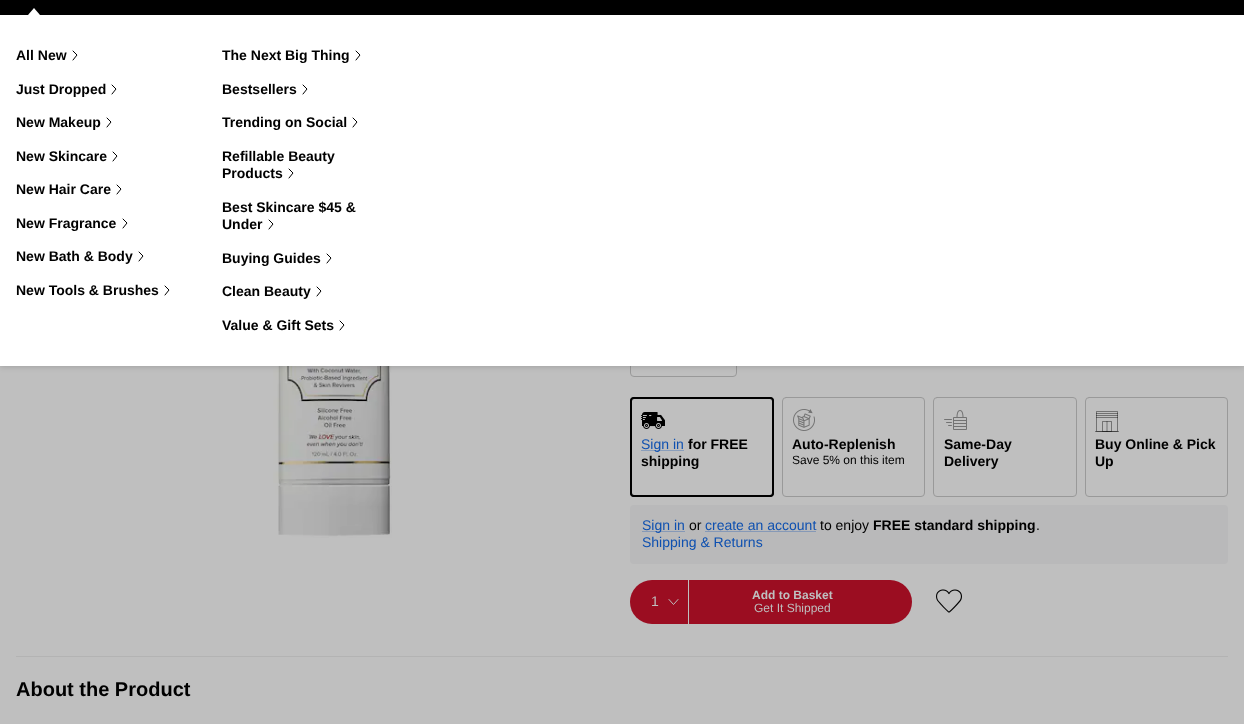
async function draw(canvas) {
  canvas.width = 1244;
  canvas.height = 724;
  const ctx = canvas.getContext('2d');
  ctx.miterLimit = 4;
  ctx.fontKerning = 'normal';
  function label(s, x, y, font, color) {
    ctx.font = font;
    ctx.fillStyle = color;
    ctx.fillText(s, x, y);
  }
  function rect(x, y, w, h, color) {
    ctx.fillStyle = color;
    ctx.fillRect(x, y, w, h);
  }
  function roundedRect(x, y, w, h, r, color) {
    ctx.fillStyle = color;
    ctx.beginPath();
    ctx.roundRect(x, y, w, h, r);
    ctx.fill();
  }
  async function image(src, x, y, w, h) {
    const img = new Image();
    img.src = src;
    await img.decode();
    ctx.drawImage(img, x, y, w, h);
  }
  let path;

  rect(0, 0, 1244, 724, '#bfbfbf');
  rect(0, 0, 1244, 15, '#000');
  await image('assets/img1.png', 273, 366, 119, 172);
  ctx.beginPath();
  ctx.roundRect(630.5, 341.5, 106, 35, 3.5);
  ctx.strokeStyle = '#999';
  ctx.stroke();
  ctx.fillStyle = '#00000033';
  ctx.filter = 'blur(3px)';
  ctx.beginPath();
  ctx.rect(0, 15, 1244, 351);
  ctx.fill();
  ctx.filter = 'none';
  ctx.fillStyle = '#fff';
  path = new Path2D('M40 15H28L34 8Z');
  ctx.fill(path);
  rect(0, 15, 1244, 351, '#fff');
  label('All New', 16, 60, 'bold 14px Liberation Sans', '#000');
  path = new Path2D('M73 60L77 55L73 51M112 94L116 89L112 85');
  ctx.strokeStyle = '#000';
  ctx.lineCap = 'round';
  ctx.lineJoin = 'round';
  ctx.stroke(path);
  label('Just Dropped', 16, 94, 'bold 14px Liberation Sans', '#000');
  label('New Makeup', 16, 127, 'bold 14px Liberation Sans', '#000');
  path = new Path2D('M107 127L111 122L107 118M113 161L117 156L113 152');
  ctx.stroke(path);
  label('New Skincare', 16, 161, 'bold 14px Liberation Sans', '#000');
  label('New Hair Care', 16, 194, 'bold 14px Liberation Sans', '#000');
  path = new Path2D('M117 194L121 189L117 185M123 228L127 223L123 219');
  ctx.stroke(path);
  label('New Fragrance', 16, 228, 'bold 14px Liberation Sans', '#000');
  label('New Bath & Body', 16, 261, 'bold 14px Liberation Sans', '#000');
  path = new Path2D('M139 261L143 256L139 252M165 295L169 290L165 286');
  ctx.stroke(path);
  label('New Tools & Brushes', 16, 295, 'bold 14px Liberation Sans', '#000');
  label('The Next Big Thing', 222, 60, 'bold 14px Liberation Sans', '#000');
  path = new Path2D('M356 60L360 55L356 51M303 94L307 89L303 85');
  ctx.stroke(path);
  label('Bestsellers', 222, 94, 'bold 14px Liberation Sans', '#000');
  label('Trending on Social', 222, 127, 'bold 14px Liberation Sans', '#000');
  path = new Path2D('M353 127L357 122L353 118');
  ctx.stroke(path);
  label('Refillable Beauty', 222, 161, 'bold 14px Liberation Sans', '#000');
  label('Products', 222, 178, 'bold 14px Liberation Sans', '#000');
  path = new Path2D('M289 178L293 173L289 169M269 229L273 224L269 220');
  ctx.stroke(path);
  label('Best Skincare $45 &', 222, 212, 'bold 14px Liberation Sans', '#000');
  label('Under', 222, 229, 'bold 14px Liberation Sans', '#000');
  label('Buying Guides', 222, 263, 'bold 14px Liberation Sans', '#000');
  path = new Path2D('M327 263L331 258L327 254M317 296L321 291L317 287');
  ctx.stroke(path);
  label('Clean Beauty', 222, 296, 'bold 14px Liberation Sans', '#000');
  label('Value & Gift Sets', 222, 330, 'bold 14px Liberation Sans', '#000');
  path = new Path2D('M340 330L344 325L340 321');
  ctx.stroke(path);
  ctx.beginPath();
  ctx.roundRect(630.5, 397.5, 143, 99, 3.5);
  ctx.lineJoin = 'miter';
  ctx.stroke();
  await image('assets/img2.png', 641, 412, 24, 17);
  rect(641, 450, 43, 1, '#8a9ebb');
  ctx.beginPath();
  ctx.roundRect(631, 398, 142, 98, 3);
  ctx.lineWidth = 2;
  ctx.stroke();
  label('Sign in', 641, 449, '14px Liberation Sans', '#0e50b0');
  label('for FREE', 688, 449, 'bold 14px Liberation Sans', '#000');
  label('shipping', 641, 466, 'bold 14px Liberation Sans', '#000');
  roundedRect(630, 505, 598, 59, 4, '#b9b9ba');
  rect(642, 531, 43, 1, '#8699b7');
  label('Sign in', 642, 530, '14px Liberation Sans', '#0e50b0');
  label('or', 689, 530, '14px Liberation Sans', '#000');
  label('create an account', 705, 530, '14px Liberation Sans', '#0e50b0');
  rect(705, 531, 111, 1, '#8699b7');
  label('to enjoy', 820, 530, '14px Liberation Sans', '#000');
  label('FREE standard shipping', 873, 530, 'bold 14px Liberation Sans', '#000');
  label('.', 1036, 530, '14px Liberation Sans', '#000');
  label('Shipping & Returns', 642, 547, '14px Liberation Sans', '#0e50b0');
  ctx.beginPath();
  ctx.roundRect(782.5, 397.5, 142, 99, 3.5);
  ctx.strokeStyle = '#999';
  ctx.lineWidth = 1;
  ctx.stroke();
  await image('assets/img3.png', 793, 409, 22, 22);
  label('Auto-Replenish', 792, 449, 'bold 14px Liberation Sans', '#000');
  label('Save 5% on this item', 792, 464, '12px Liberation Sans', '#000');
  ctx.beginPath();
  ctx.roundRect(933.5, 397.5, 143, 99, 3.5);
  ctx.stroke();
  await image('assets/img4.png', 944, 410, 23, 20);
  label('Same-Day', 944, 449, 'bold 14px Liberation Sans', '#000');
  label('Delivery', 944, 466, 'bold 14px Liberation Sans', '#000');
  ctx.beginPath();
  ctx.roundRect(1085.5, 397.5, 142, 99, 3.5);
  ctx.stroke();
  await image('assets/img5.png', 1095, 411, 24, 21);
  label('Buy Online & Pick', 1095, 449, 'bold 14px Liberation Sans', '#000');
  label('Up', 1095, 466, 'bold 14px Liberation Sans', '#000');
  roundedRect(630, 580, 282, 44, 22, '#9b0d21');
  rect(688, 580, 1, 44, '#bfbfbf');
  label('1', 651, 606, '14px Liberation Sans', '#bfbfbf');
  path = new Path2D('M669 599.5L673.5 604.5L678 599.5');
  ctx.strokeStyle = '#bfbfbf';
  ctx.lineJoin = 'round';
  ctx.stroke(path);
  label('Add to Basket', 752, 599, 'bold 12px Liberation Sans', '#bfbfbf');
  label('Get It Shipped', 754, 612, '12px Liberation Sans', '#bfbfbf');
  await image('assets/img6.png', 936, 589, 26, 24);
  rect(16, 656, 1212, 1, '#b3b3b3');
  label('About the Product', 16, 696, 'bold 20px Liberation Sans', '#000');
}

draw(document.querySelector('canvas'));
